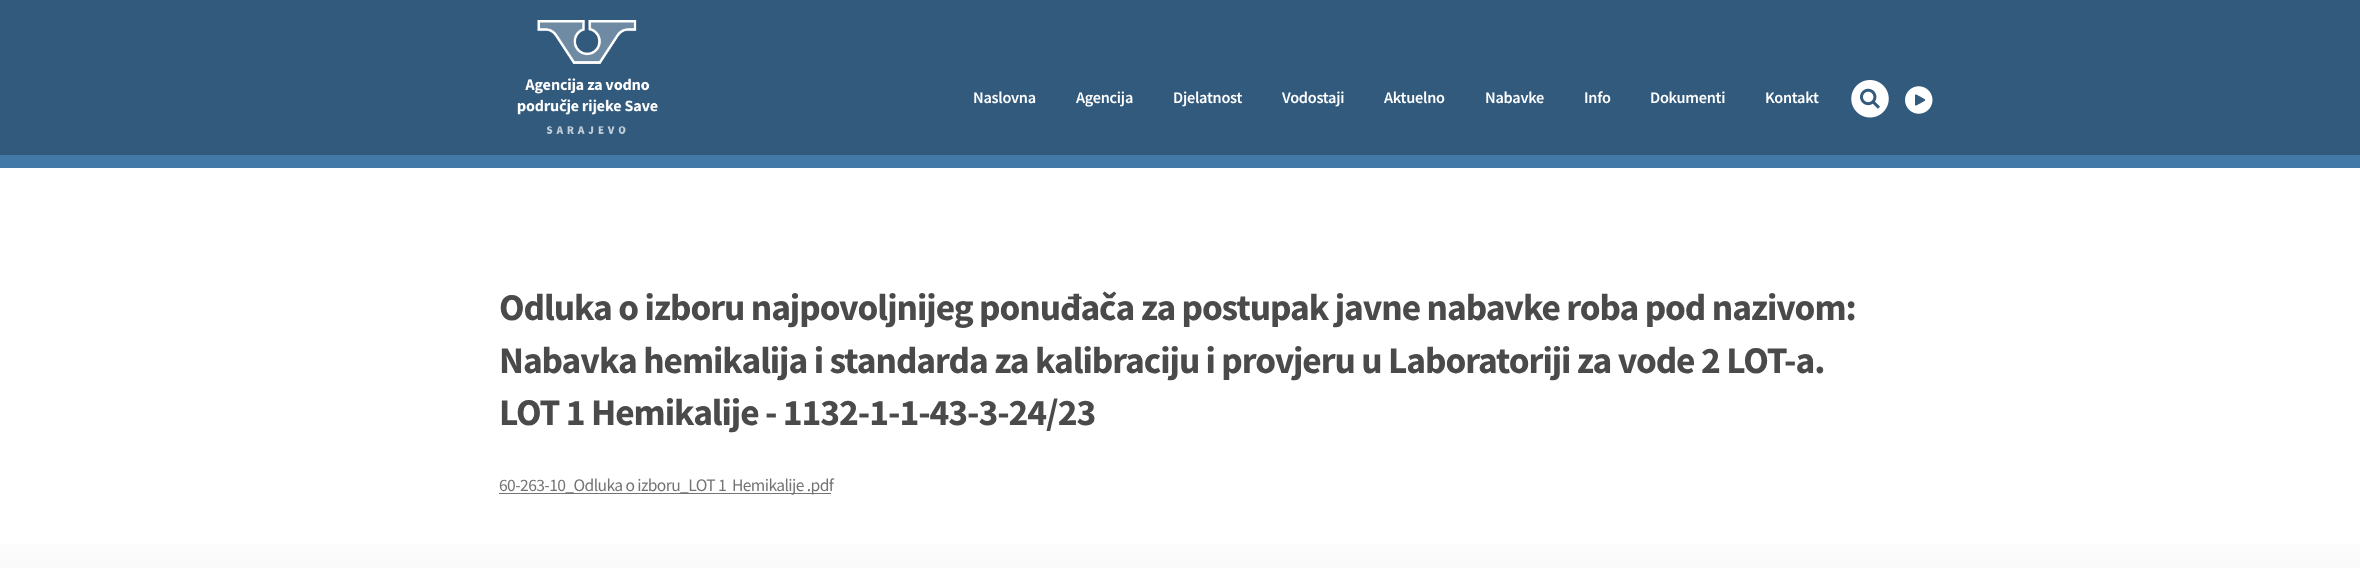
async function draw(canvas) {
  canvas.width = 2360;
  canvas.height = 568;
  const ctx = canvas.getContext('2d');
  ctx.miterLimit = 4;
  ctx.fontKerning = 'normal';
  function label(s, x, y, font, color) {
    ctx.font = font;
    ctx.fillStyle = color;
    ctx.fillText(s, x, y);
  }
  function rect(x, y, w, h, color) {
    ctx.fillStyle = color;
    ctx.fillRect(x, y, w, h);
  }
  async function image(src, x, y, w, h) {
    const img = new Image();
    img.src = src;
    await img.decode();
    ctx.drawImage(img, x, y, w, h);
  }
  let gradient;

  rect(0, 0, 2360, 568, '#fff');
  rect(0, 0, 2360, 155, '#325a7d');
  rect(0, 155, 2360, 13, '#4379a7');
  await image('assets/img1.png', 517, 20, 141, 115);
  ctx.letterSpacing = '-0.25px';
  label('Naslovna', 973, 103, '600 16.25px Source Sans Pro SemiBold', '#fff');
  label('Agencija', 1076, 103, '600 16.25px Source Sans Pro SemiBold', '#fff');
  label('Djelatnost', 1173, 103, '600 16.25px Source Sans Pro SemiBold', '#fff');
  label('Vodostaji', 1282, 103, '600 16.25px Source Sans Pro SemiBold', '#fff');
  label('Aktuelno', 1384, 103, '600 16.25px Source Sans Pro SemiBold', '#fff');
  label('Nabavke', 1485, 103, '600 16.25px Source Sans Pro SemiBold', '#fff');
  label('Info', 1584, 103, '600 16.25px Source Sans Pro SemiBold', '#fff');
  label('Dokumenti', 1650, 103, '600 16.25px Source Sans Pro SemiBold', '#fff');
  label('Kontakt', 1765, 103, '600 16.25px Source Sans Pro SemiBold', '#fff');
  await image('assets/img2.png', 1851, 80, 38, 38);
  await image('assets/img3.png', 1905, 86, 28, 28);
  ctx.letterSpacing = '-1.05px';
  label('Odluka o izboru najpovoljnijeg ponuđača za postupak javne nabavke roba pod nazivom:', 499, 320, 'bold 37.5px Source Sans Pro', '#4a4a4a');
  label('Nabavka hemikalija i standarda za kalibraciju i provjeru u Laboratoriji za vode 2 LOT-a.', 499, 373, 'bold 37.5px Source Sans Pro', '#4a4a4a');
  label('LOT 1 Hemikalije - 1132-1-1-43-3-24/23', 499, 425, 'bold 37.5px Source Sans Pro', '#4a4a4a');
  rect(499, 493, 332, 1, '#747474');
  ctx.letterSpacing = '-0.6px';
  label('60-263-10_Odluka o izboru_LOT 1  Hemikalije .pdf', 499, 491, '17.5px Source Sans Pro', '#747474');
  gradient = ctx.createLinearGradient(1180, 520, 1180, 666);
  gradient.addColorStop(0, '#fff');
  gradient.addColorStop(1, '#f0f0f0');
  ctx.fillStyle = gradient;
  ctx.fillRect(0, 544, 2360, 24);
}

draw(document.querySelector('canvas'));
